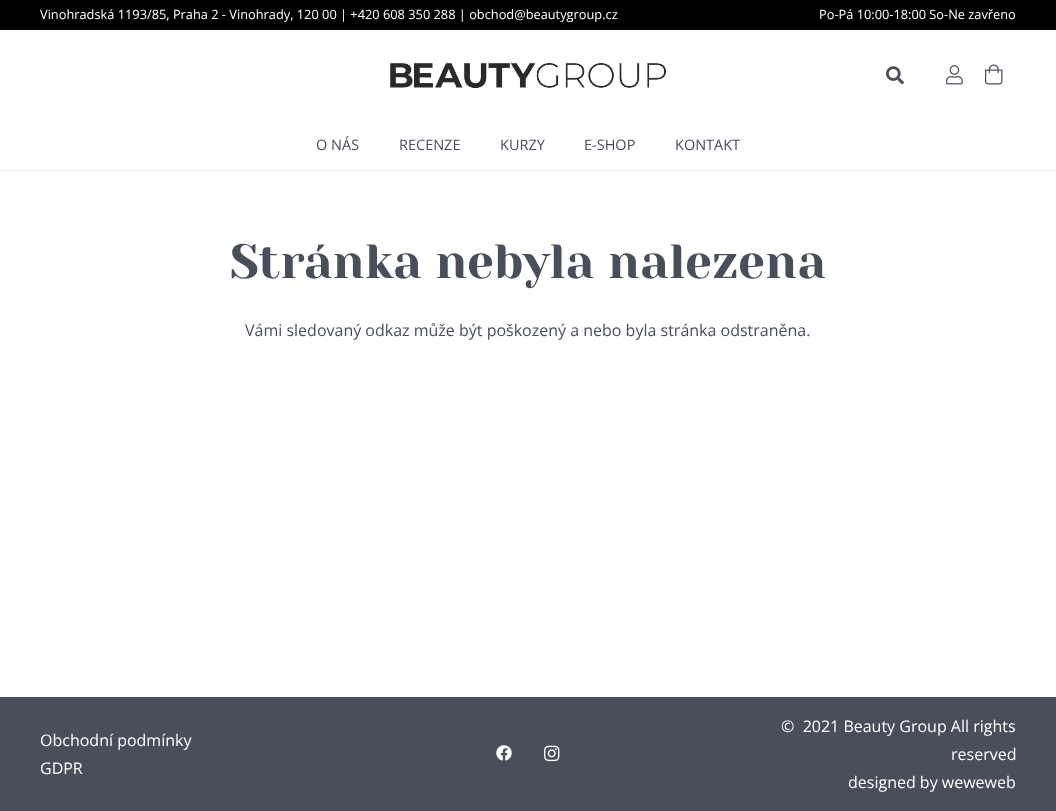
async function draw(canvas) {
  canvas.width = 1056;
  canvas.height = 811;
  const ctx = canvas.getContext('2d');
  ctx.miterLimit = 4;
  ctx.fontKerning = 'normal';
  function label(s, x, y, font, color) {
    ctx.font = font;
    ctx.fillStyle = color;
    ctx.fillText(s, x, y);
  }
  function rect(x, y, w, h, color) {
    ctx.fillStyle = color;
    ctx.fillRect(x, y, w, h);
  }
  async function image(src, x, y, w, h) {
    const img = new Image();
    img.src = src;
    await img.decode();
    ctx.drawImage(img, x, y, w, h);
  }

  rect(0, 0, 1056, 811, '#fff');
  rect(0, 0, 1056, 30, '#000');
  label('Vinohradská 1193/85, Praha 2 - Vinohrady, 120 00 | +420 608 350 288 | obchod@beautygroup.cz', 40, 19, '12.8px Open Sans', '#fff');
  label('Po-Pá 10:00-18:00 So-Ne zavřeno', 819, 19, '12.8px Open Sans', '#fff');
  await image('assets/img1.png', 390, 62, 276, 26);
  await image('assets/img2.png', 886, 66, 18, 19);
  await image('assets/img3.png', 946, 65, 17, 20);
  await image('assets/img4.png', 985, 64, 18, 21);
  rect(0, 170, 1056, 1, '#ebebeb');
  label('O NÁS', 316, 150, '14.5px Open Sans', '#494e5b');
  label('RECENZE', 399, 150, '14.5px Open Sans', '#494e5b');
  label('KURZY', 500, 150, '14.5px Open Sans', '#494e5b');
  label('E-SHOP', 584, 150, '14.5px Open Sans', '#494e5b');
  label('KONTAKT', 675, 150, '14.5px Open Sans', '#494e5b');
  label('Stránka nebyla nalezena', 230, 278, '48px Yeseva One', '#494e5b');
  label('Vámi sledovaný odkaz může být poškozený a nebo byla stránka odstraněna.', 245, 336, '16px Open Sans', '#494e5b');
  rect(0, 697, 1056, 114, '#494e5b');
  label('Obchodní podmínky', 40, 746, '16px Open Sans', '#fff');
  label('GDPR', 40, 774, '16px Open Sans', '#fff');
  await image('assets/img5.png', 496, 745, 16, 16);
  await image('assets/img6.png', 544, 745, 16, 17);
  label('©  2021 Beauty Group All rights', 781, 732, '16px Open Sans', '#fff');
  label('reserved', 951, 760, '16px Open Sans', '#fff');
  label('designed by weweweb', 848, 788, '16px Open Sans', '#fff');
}

draw(document.querySelector('canvas'));
